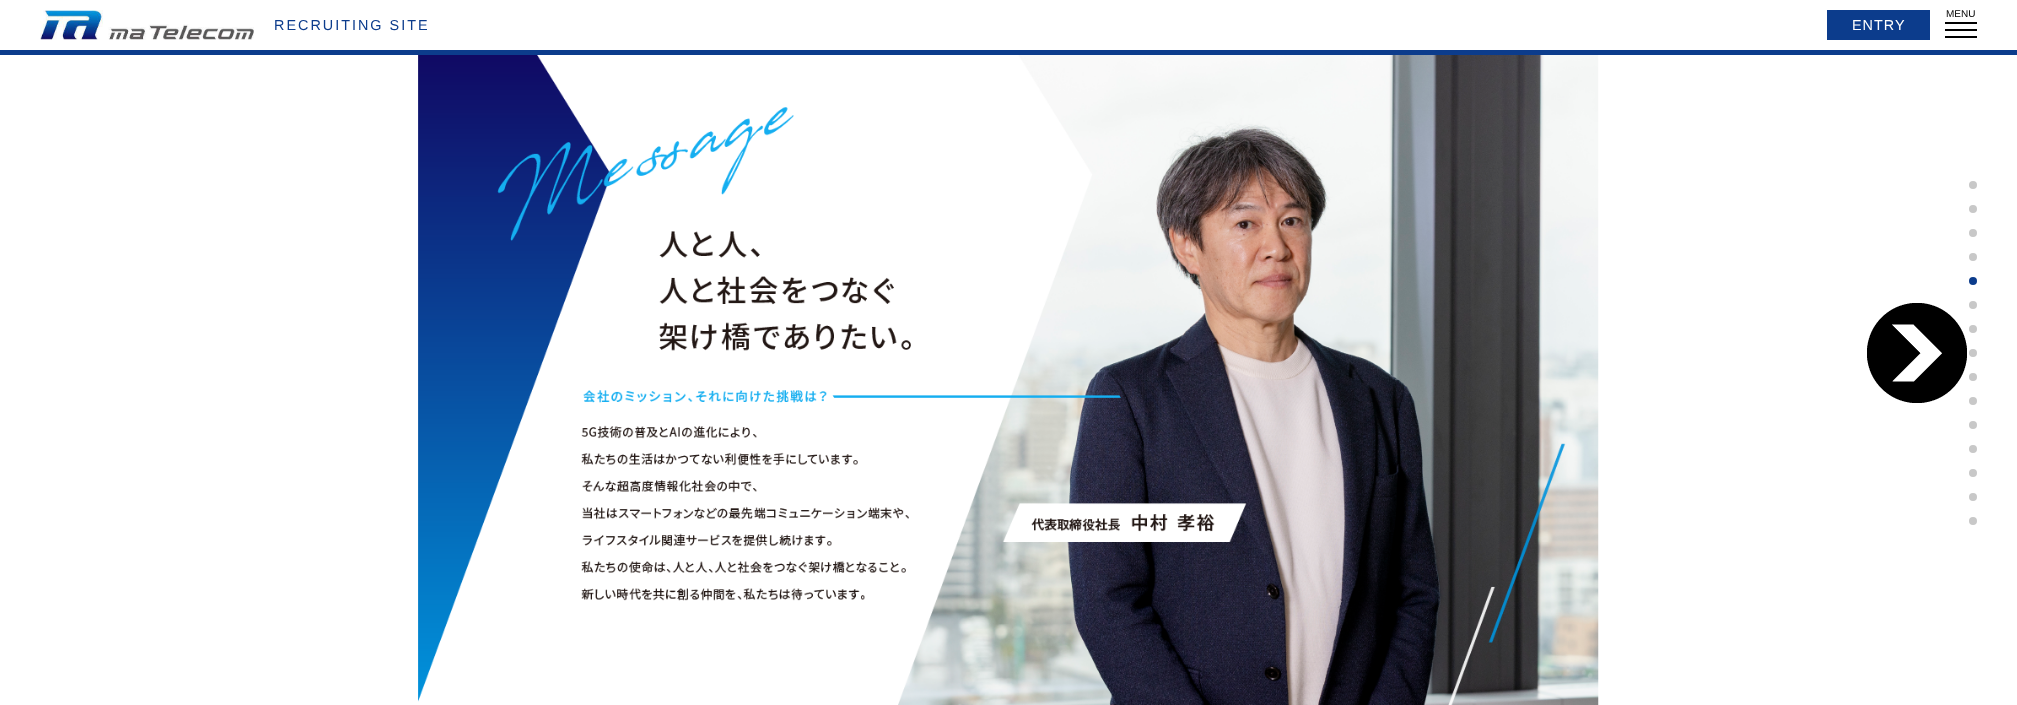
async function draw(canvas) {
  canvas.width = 2017;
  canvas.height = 705;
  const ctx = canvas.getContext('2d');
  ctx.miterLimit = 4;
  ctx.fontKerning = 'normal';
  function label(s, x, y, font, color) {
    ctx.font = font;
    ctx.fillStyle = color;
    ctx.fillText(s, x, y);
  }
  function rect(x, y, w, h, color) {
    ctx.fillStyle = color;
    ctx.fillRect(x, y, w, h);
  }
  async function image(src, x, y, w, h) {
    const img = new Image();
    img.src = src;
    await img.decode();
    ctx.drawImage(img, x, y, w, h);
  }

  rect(0, 0, 2017, 705, '#fff');
  rect(0, 50, 2017, 5, '#0c3c8c');
  await image('assets/img1.png', 40, 10, 214, 30);
  label('MENU', 1946, 17, '10px Liberation Sans', '#000');
  rect(1945, 22, 32, 2, '#000');
  rect(1945, 29, 32, 2, '#000');
  rect(1945, 36, 32, 2, '#000');
  ctx.letterSpacing = '2px';
  label('RECRUITING SITE', 274, 30, '14.4px Liberation Sans', '#0c3c8c');
  rect(1827, 10, 103, 30, '#0c3c8c');
  ctx.letterSpacing = '1px';
  label('ENTRY', 1852, 30, '14.4px Liberation Sans', '#fff');
  await image('assets/img2.png', 418, 55, 1181, 650);
  await image('assets/img3.png', 497, 107, 1069, 598);
  await image('assets/img4.png', 581, 231, 666, 370);
  await image('assets/img5.png', 1867, 303, 100, 100);
  ctx.fillStyle = '#c8c8c8';
  ctx.beginPath();
  ctx.arc(1973, 185, 4, 0, 2 * Math.PI);
  ctx.fill();
  ctx.beginPath();
  ctx.arc(1973, 209, 4, 0, 2 * Math.PI);
  ctx.fill();
  ctx.beginPath();
  ctx.arc(1973, 233, 4, 0, 2 * Math.PI);
  ctx.fill();
  ctx.beginPath();
  ctx.arc(1973, 257, 4, 0, 2 * Math.PI);
  ctx.fill();
  ctx.fillStyle = '#0c3c8c';
  ctx.beginPath();
  ctx.arc(1973, 281, 4, 0, 2 * Math.PI);
  ctx.fill();
  ctx.fillStyle = '#c8c8c8';
  ctx.beginPath();
  ctx.arc(1973, 305, 4, 0, 2 * Math.PI);
  ctx.fill();
  ctx.beginPath();
  ctx.arc(1973, 329, 4, 0, 2 * Math.PI);
  ctx.fill();
  ctx.beginPath();
  ctx.arc(1973, 353, 4, 0, 2 * Math.PI);
  ctx.fill();
  ctx.beginPath();
  ctx.arc(1973, 377, 4, 0, 2 * Math.PI);
  ctx.fill();
  ctx.beginPath();
  ctx.arc(1973, 401, 4, 0, 2 * Math.PI);
  ctx.fill();
  ctx.beginPath();
  ctx.arc(1973, 425, 4, 0, 2 * Math.PI);
  ctx.fill();
  ctx.beginPath();
  ctx.arc(1973, 449, 4, 0, 2 * Math.PI);
  ctx.fill();
  ctx.beginPath();
  ctx.arc(1973, 473, 4, 0, 2 * Math.PI);
  ctx.fill();
  ctx.beginPath();
  ctx.arc(1973, 497, 4, 0, 2 * Math.PI);
  ctx.fill();
  ctx.beginPath();
  ctx.arc(1973, 521, 4, 0, 2 * Math.PI);
  ctx.fill();
}

draw(document.querySelector('canvas'));
